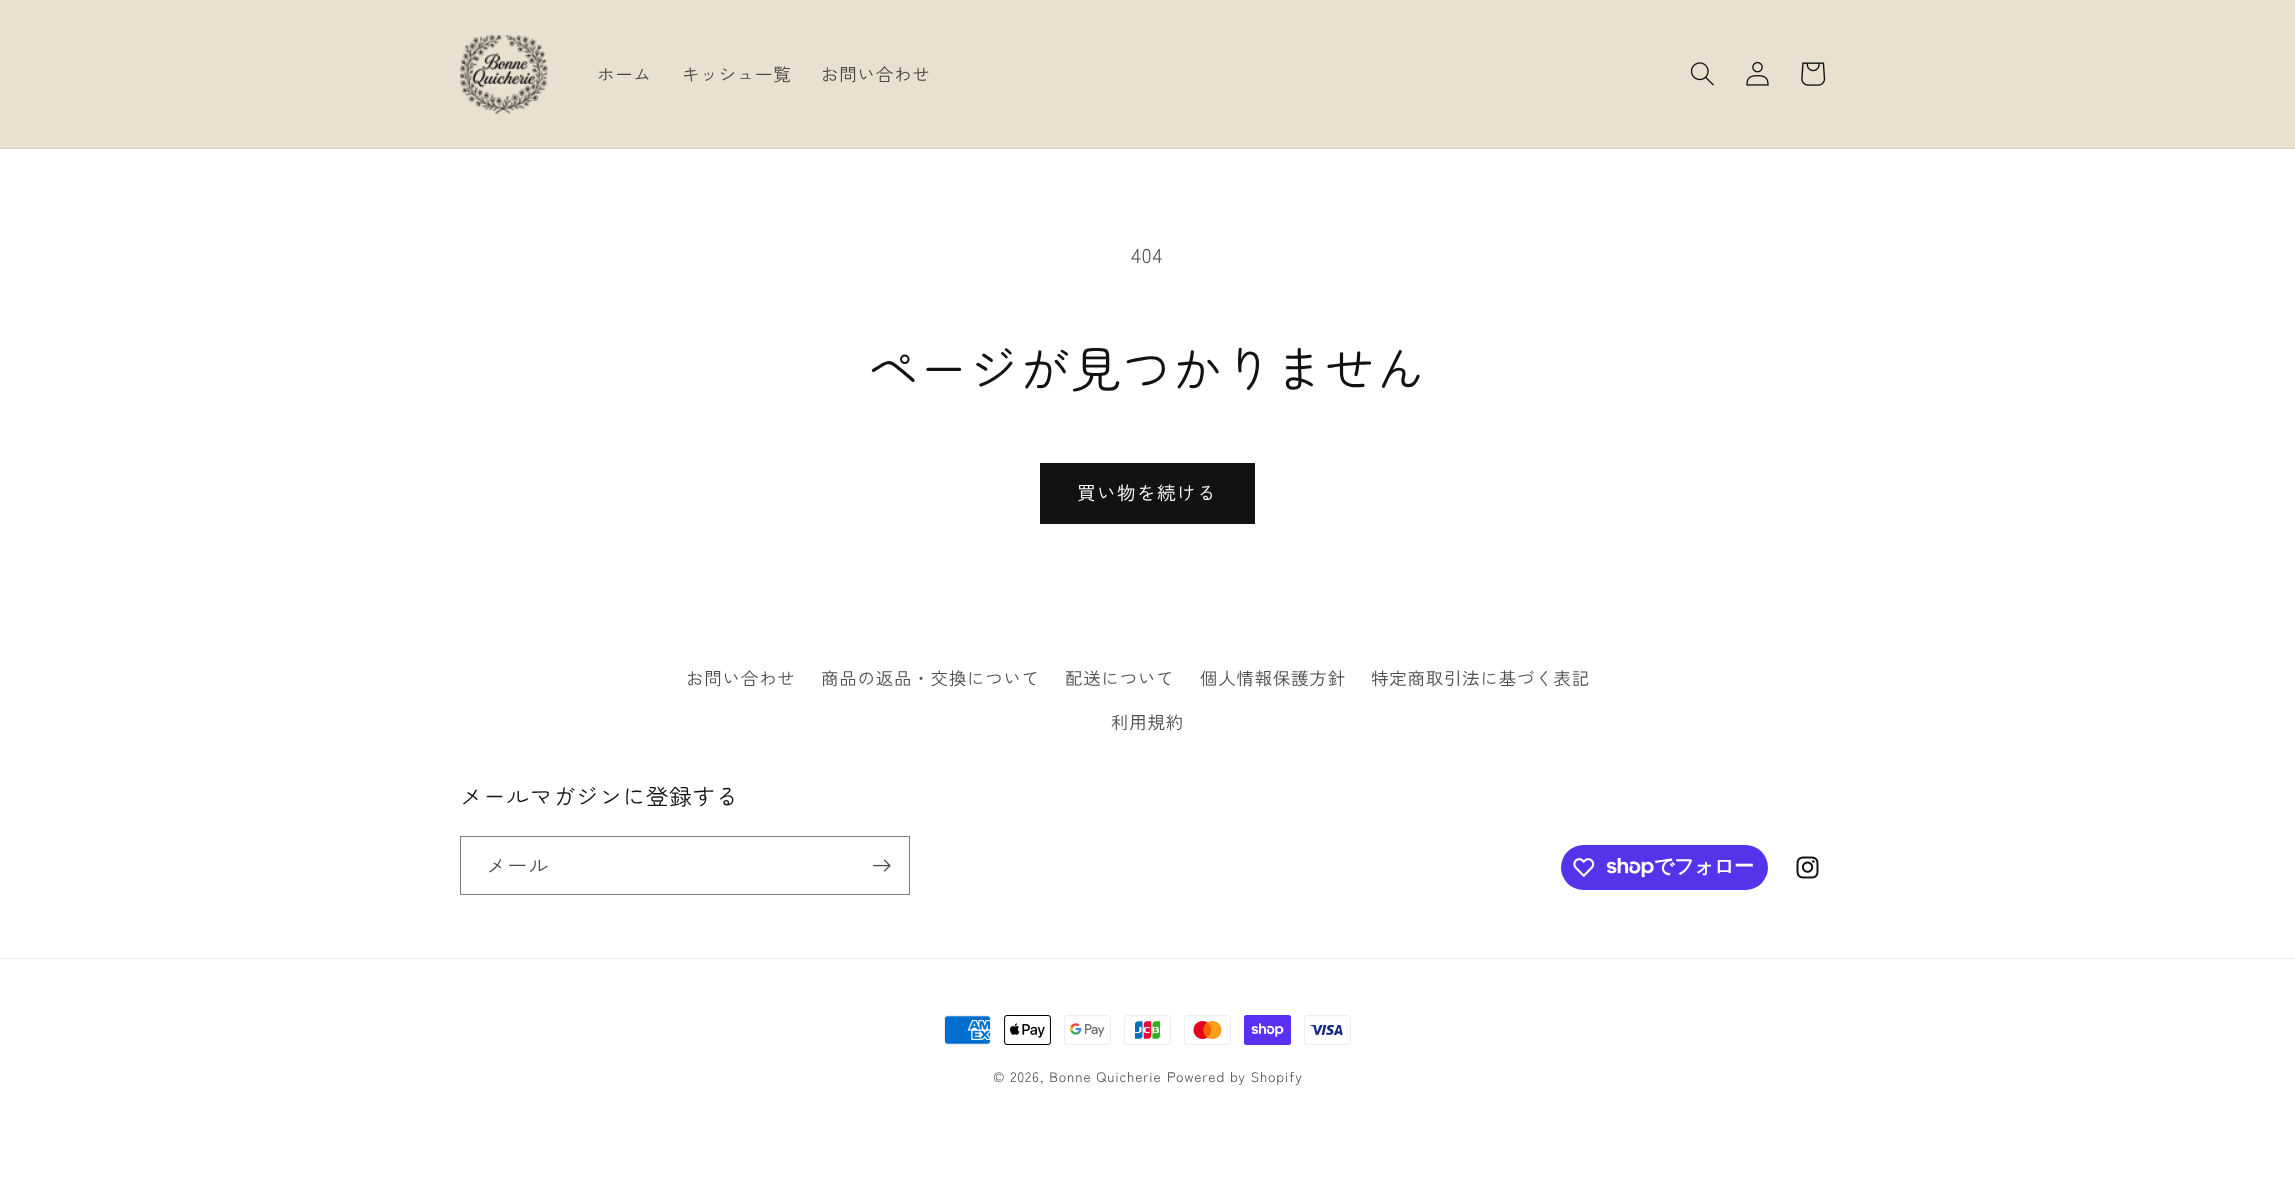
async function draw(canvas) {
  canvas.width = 2295;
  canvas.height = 1191;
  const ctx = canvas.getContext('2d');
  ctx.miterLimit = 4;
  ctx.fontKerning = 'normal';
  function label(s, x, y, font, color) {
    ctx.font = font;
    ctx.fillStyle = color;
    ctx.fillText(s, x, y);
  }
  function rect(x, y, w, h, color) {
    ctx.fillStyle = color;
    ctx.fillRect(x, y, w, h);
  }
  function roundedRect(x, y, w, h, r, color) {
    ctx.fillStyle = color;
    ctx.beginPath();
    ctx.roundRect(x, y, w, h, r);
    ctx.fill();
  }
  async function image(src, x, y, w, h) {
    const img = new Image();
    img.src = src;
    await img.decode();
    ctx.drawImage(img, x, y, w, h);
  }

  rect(0, 0, 2295, 1191, '#fff');
  rect(0, 0, 2295, 148, '#e9e0cf');
  rect(0, 148, 2295, 1, '#d8d0c0');
  await image('assets/img1.png', 460, 35, 88, 79);
  ctx.letterSpacing = '0.75px';
  label('ホーム', 597, 81, '17.5px Zen Kaku Gothic New', '#484641');
  label('キッシュ一覧', 682, 81, '17.5px Zen Kaku Gothic New', '#484641');
  label('お問い合わせ', 821, 81, '17.5px Zen Kaku Gothic New', '#484641');
  await image('assets/img2.png', 1690, 62, 24, 24);
  await image('assets/img3.png', 1746, 61, 23, 25);
  await image('assets/img4.png', 1801, 62, 25, 24);
  label('404', 1131, 263, '20px Zen Kaku Gothic New', '#4d4d4d');
  label('ページが見つかりません', 868, 388, '50px Zen Maru Gothic', '#121212');
  rect(1040, 463, 215, 61, '#121212');
  ctx.letterSpacing = '1.25px';
  label('買い物を続ける', 1077, 500, '18.75px Zen Kaku Gothic New', '#fff');
  ctx.letterSpacing = '0.75px';
  label('お問い合わせ', 686, 685, '17.5px Zen Kaku Gothic New', '#4d4d4d');
  label('商品の返品・交換について', 821, 685, '17.5px Zen Kaku Gothic New', '#4d4d4d');
  label('配送について', 1065, 685, '17.5px Zen Kaku Gothic New', '#4d4d4d');
  label('個人情報保護方針', 1200, 685, '17.5px Zen Kaku Gothic New', '#4d4d4d');
  label('特定商取引法に基づく表記', 1371, 685, '17.5px Zen Kaku Gothic New', '#4d4d4d');
  label('利用規約', 1111, 729, '17.5px Zen Kaku Gothic New', '#4d4d4d');
  label('メールマガジンに登録する', 460, 805, '22.5px Zen Maru Gothic', '#121212');
  ctx.strokeStyle = '#7d7d7d';
  ctx.strokeRect(460.5, 836.5, 449, 58);
  ctx.letterSpacing = '1.25px';
  label('メール', 486, 873, '20px Zen Kaku Gothic New', '#4d4d4d');
  await image('assets/img5.png', 873, 859, 18, 13);
  roundedRect(1561, 845, 207, 45, 22.5, '#5433eb');
  await image('assets/img6.png', 1573, 858, 22, 19);
  await image('assets/img7.png', 1606, 858, 48, 20);
  ctx.letterSpacing = '-0.5px';
  label('でフォロー', 1654, 873, 'bold 20px WenQuanYi Zen Hei', '#fff');
  await image('assets/img8.png', 1796, 856, 23, 23);
  rect(0, 958, 2295, 1, '#ececec');
  await image('assets/img9.png', 944, 1015, 47, 30);
  await image('assets/img10.png', 1004, 1015, 47, 30);
  await image('assets/img11.png', 1064, 1015, 47, 30);
  await image('assets/img12.png', 1124, 1015, 47, 30);
  await image('assets/img13.png', 1184, 1015, 47, 30);
  await image('assets/img14.png', 1244, 1015, 47, 30);
  await image('assets/img15.png', 1304, 1015, 47, 30);
  ctx.letterSpacing = '0.9px';
  label('© 2026, Bonne Quicherie', 993, 1082, '13.75px Zen Kaku Gothic New', '#4d4d4d');
  label('Powered by Shopify', 1167, 1082, '13.75px Zen Kaku Gothic New', '#4d4d4d');
}

draw(document.querySelector('canvas'));
